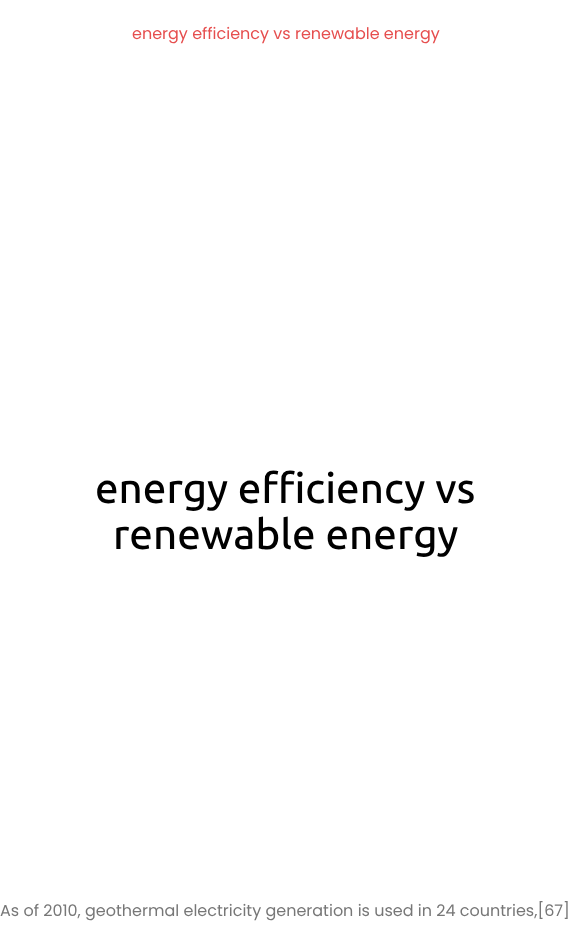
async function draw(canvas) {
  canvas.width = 571;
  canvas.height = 932;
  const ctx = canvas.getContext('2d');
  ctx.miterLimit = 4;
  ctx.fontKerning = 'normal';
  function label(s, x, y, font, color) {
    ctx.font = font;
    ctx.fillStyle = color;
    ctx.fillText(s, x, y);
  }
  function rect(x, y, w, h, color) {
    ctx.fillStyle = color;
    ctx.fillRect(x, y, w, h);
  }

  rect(0, 0, 571, 932, '#fff');
  label('energy efficiency vs renewable energy', 132, 39, '16px Poppins', '#e64e4e');
  label('energy efficiency vs', 95, 503, '500 42px Ubuntu', '#000');
  label('renewable energy', 113, 549, '500 42px Ubuntu', '#000');
  label('As of 2010, geothermal electricity generation is used in 24 countries,[67]', 0, 916, '16px Poppins', '#777');
}

draw(document.querySelector('canvas'));
